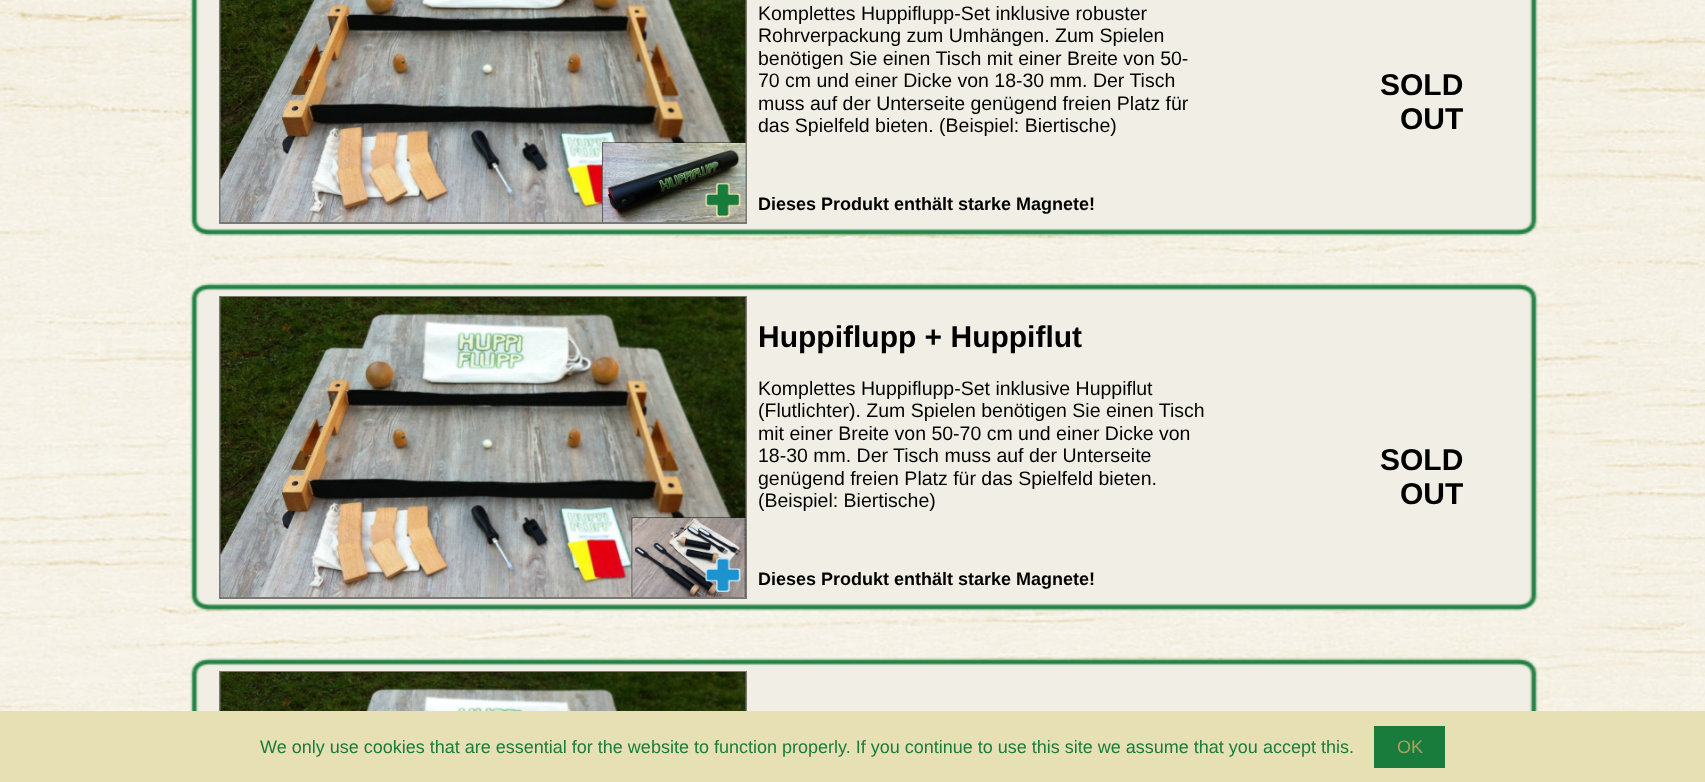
async function draw(canvas) {
  canvas.width = 1705;
  canvas.height = 782;
  const ctx = canvas.getContext('2d');
  ctx.miterLimit = 4;
  ctx.fontKerning = 'normal';
  function label(s, x, y, font, color) {
    ctx.font = font;
    ctx.fillStyle = color;
    ctx.fillText(s, x, y);
  }
  function rect(x, y, w, h, color) {
    ctx.fillStyle = color;
    ctx.fillRect(x, y, w, h);
  }
  async function image(src, x, y, w, h) {
    const img = new Image();
    img.src = src;
    await img.decode();
    ctx.drawImage(img, x, y, w, h);
  }

  rect(0, 0, 1705, 782, '#fff');
  await image('assets/img1.png', 0, 0, 1705, 711);
  await image('assets/img2.png', 190, 0, 1348, 237);
  ctx.strokeStyle = '#797873';
  ctx.lineWidth = 2;
  ctx.strokeRect(220, -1, 526, 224);
  await image('assets/img3.png', 220, 0, 526, 222);
  label('Komplettes Huppiflupp-Set inklusive robuster', 758, 20, '19.5px Liberation Sans', '#000');
  label('Rohrverpackung zum Umhängen. Zum Spielen', 758, 42, '19.5px Liberation Sans', '#000');
  label('benötigen Sie einen Tisch mit einer Breite von 50-', 758, 65, '19.5px Liberation Sans', '#000');
  label('70 cm und einer Dicke von 18-30 mm. Der Tisch', 758, 87, '19.5px Liberation Sans', '#000');
  label('muss auf der Unterseite genügend freien Platz für', 758, 110, '19.5px Liberation Sans', '#000');
  label('das Spielfeld bieten. (Beispiel: Biertische)', 758, 132, '19.5px Liberation Sans', '#000');
  label('SOLD', 1380, 95, 'bold 30px Liberation Sans', '#000');
  label('OUT', 1400, 129, 'bold 30px Liberation Sans', '#000');
  label('Dieses Produkt enthält starke Magnete!', 758, 210, 'bold 18px Liberation Sans', '#000');
  await image('assets/img4.png', 190, 282, 1348, 330);
  ctx.strokeRect(220, 297, 526, 301);
  await image('assets/img5.png', 220, 297, 526, 300);
  label('Huppiflupp + Huppiflut', 758, 347, 'bold 30px Liberation Sans', '#000');
  label('Komplettes Huppiflupp-Set inklusive Huppiflut', 758, 395, '19.5px Liberation Sans', '#000');
  label('(Flutlichter). Zum Spielen benötigen Sie einen Tisch', 758, 417, '19.5px Liberation Sans', '#000');
  label('mit einer Breite von 50-70 cm und einer Dicke von', 758, 440, '19.5px Liberation Sans', '#000');
  label('18-30 mm. Der Tisch muss auf der Unterseite', 758, 462, '19.5px Liberation Sans', '#000');
  label('genügend freien Platz für das Spielfeld bieten.', 758, 485, '19.5px Liberation Sans', '#000');
  label('(Beispiel: Biertische)', 758, 507, '19.5px Liberation Sans', '#000');
  label('SOLD', 1380, 470, 'bold 30px Liberation Sans', '#000');
  label('OUT', 1400, 504, 'bold 30px Liberation Sans', '#000');
  label('Dieses Produkt enthält starke Magnete!', 758, 585, 'bold 18px Liberation Sans', '#000');
  await image('assets/img6.png', 190, 657, 1348, 54);
  ctx.strokeRect(220, 672, 526, 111);
  await image('assets/img7.png', 220, 672, 526, 39);
  rect(0, 711, 1705, 71, '#e8e0b5');
  label('We only use cookies that are essential for the website to function properly. If you continue to use this site we assume that you accept this.', 260, 753, '18px Liberation Sans', '#197c3c');
  rect(1374, 726, 71, 42, '#197c3c');
  label('OK', 1397, 753, '18px Liberation Sans', '#aba15e');
}

draw(document.querySelector('canvas'));
